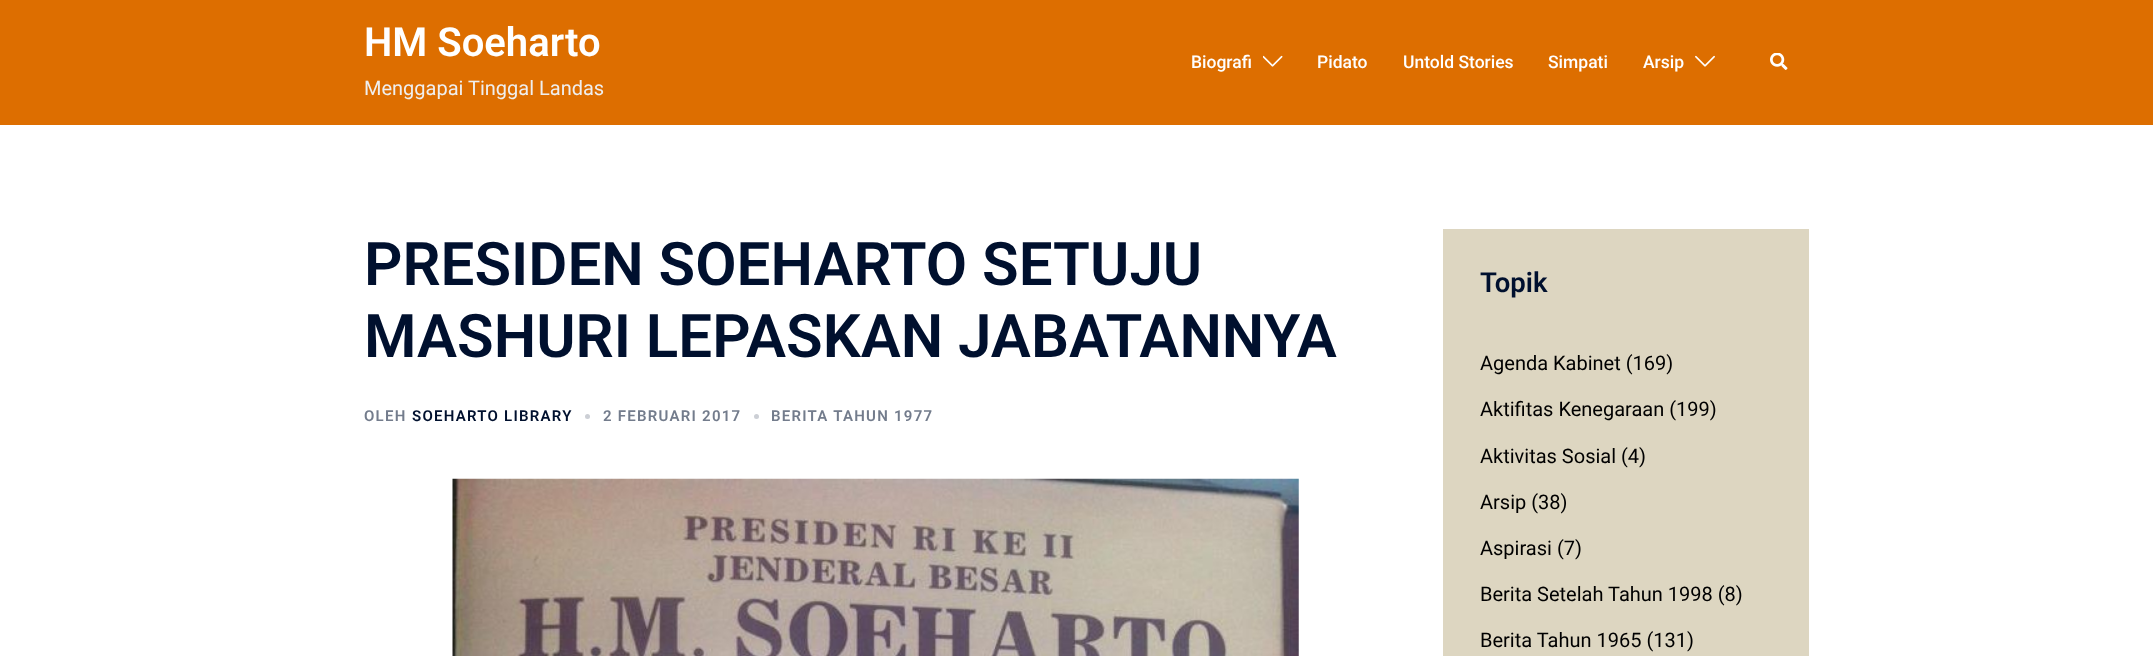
async function draw(canvas) {
  canvas.width = 2153;
  canvas.height = 656;
  const ctx = canvas.getContext('2d');
  ctx.miterLimit = 4;
  ctx.fontKerning = 'normal';
  function label(s, x, y, font, color) {
    ctx.font = font;
    ctx.fillStyle = color;
    ctx.fillText(s, x, y);
  }
  function rect(x, y, w, h, color) {
    ctx.fillStyle = color;
    ctx.fillRect(x, y, w, h);
  }
  async function image(src, x, y, w, h) {
    const img = new Image();
    img.src = src;
    await img.decode();
    ctx.drawImage(img, x, y, w, h);
  }

  rect(0, 0, 2153, 656, '#fff');
  rect(0, 0, 2153, 125, '#dd6e00');
  label('HM Soeharto', 364, 56, '600 40px Roboto', '#fff');
  label('Menggapai Tinggal Landas', 364, 95, '20px Roboto', '#efefef');
  label('Biografi', 1191, 68, '500 17.5px Roboto', '#fff');
  await image('assets/img1.png', 1263, 55, 20, 12);
  label('Pidato', 1317, 68, '500 17.5px Roboto', '#fff');
  label('Untold Stories', 1403, 68, '500 17.5px Roboto', '#fff');
  label('Simpati', 1548, 68, '500 17.5px Roboto', '#fff');
  label('Arsip', 1643, 68, '500 17.5px Roboto', '#fff');
  await image('assets/img2.png', 1695, 55, 20, 12);
  await image('assets/img3.png', 1770, 53, 18, 17);
  label('PRESIDEN SOEHARTO SETUJU', 364, 285, '600 60px Roboto', '#00102e');
  label('MASHURI LEPASKAN JABATANNYA', 364, 357, '600 60px Roboto', '#00102e');
  ctx.letterSpacing = '1.25px';
  label('OLEH', 364, 421, '600 15px Roboto', '#737c8c');
  label('SOEHARTO LIBRARY', 412, 421, '600 15px Roboto', '#00102e');
  ctx.fillStyle = '#cccfd5';
  ctx.beginPath();
  ctx.arc(587.5, 416.5, 2.5, 0, 2 * Math.PI);
  ctx.fill();
  label('2 FEBRUARI 2017', 603, 421, '600 15px Roboto', '#737c8c');
  ctx.fillStyle = '#cccfd5';
  ctx.beginPath();
  ctx.arc(756.5, 416.5, 2.5, 0, 2 * Math.PI);
  ctx.fill();
  label('BERITA TAHUN 1977', 771, 421, '600 15px Roboto', '#737c8c');
  await image('assets/img4.png', 452, 478, 847, 178);
  rect(1443, 229, 366, 427, '#ddd6c1');
  ctx.letterSpacing = '0px';
  label('Topik', 1480, 292, '600 27.5px Roboto', '#00102e');
  label('Agenda Kabinet (169)', 1480, 370, '20px Roboto', '#000');
  label('Aktifitas Kenegaraan (199)', 1480, 416, '20px Roboto', '#000');
  label('Aktivitas Sosial (4)', 1480, 463, '20px Roboto', '#000');
  label('Arsip (38)', 1480, 509, '20px Roboto', '#000');
  label('Aspirasi (7)', 1480, 555, '20px Roboto', '#000');
  label('Berita Setelah Tahun 1998 (8)', 1480, 601, '20px Roboto', '#000');
  label('Berita Tahun 1965 (131)', 1480, 647, '20px Roboto', '#000');
}

draw(document.querySelector('canvas'));
